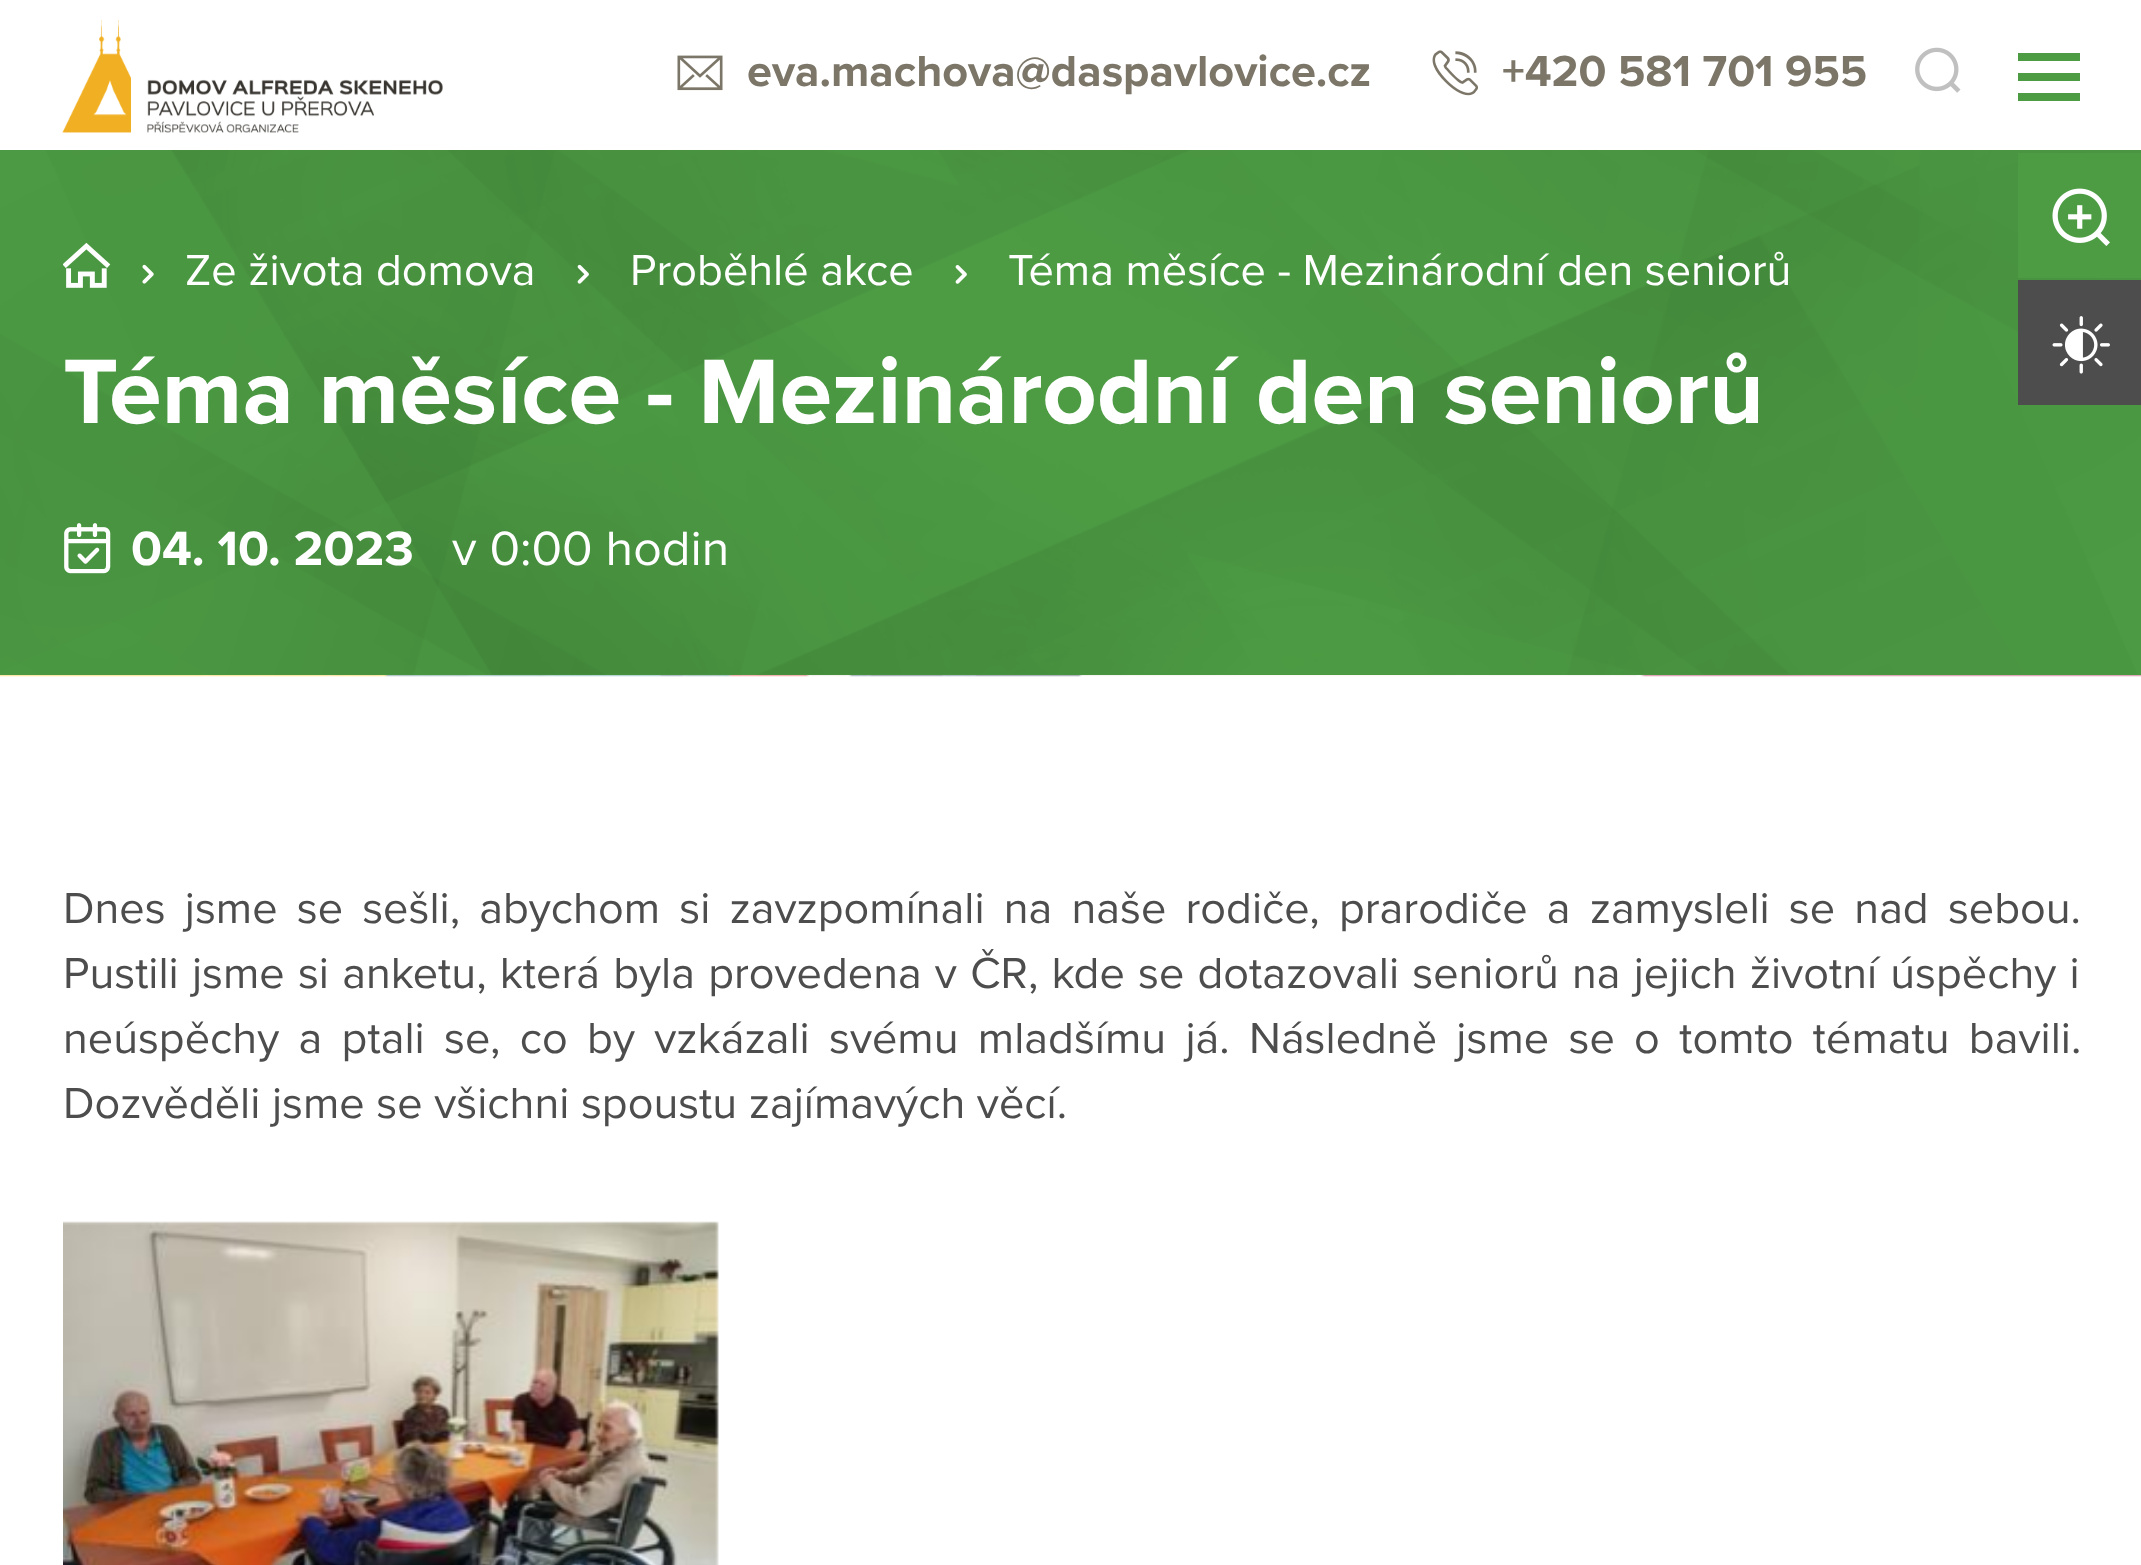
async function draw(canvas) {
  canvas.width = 2141;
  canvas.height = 1565;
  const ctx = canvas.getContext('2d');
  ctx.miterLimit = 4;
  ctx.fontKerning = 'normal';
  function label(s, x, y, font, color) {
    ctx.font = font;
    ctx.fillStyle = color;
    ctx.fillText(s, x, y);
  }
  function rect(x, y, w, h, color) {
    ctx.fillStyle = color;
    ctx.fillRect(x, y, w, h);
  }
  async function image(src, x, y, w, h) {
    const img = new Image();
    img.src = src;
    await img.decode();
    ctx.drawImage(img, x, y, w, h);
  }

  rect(0, 0, 2141, 1565, '#fff');
  await image('assets/img1.png', 62, 19, 381, 114);
  await image('assets/img2.png', 677, 55, 46, 36);
  label('eva.machova@daspavlovice.cz', 747, 86, 'bold 45px Proxima Nova', '#7c7668');
  await image('assets/img3.png', 1432, 50, 46, 46);
  label('+420 581 701 955', 1502, 86, 'bold 45px Proxima Nova', '#7c7668');
  await image('assets/img4.png', 1915, 47, 46, 46);
  rect(2018, 73, 62, 8, '#4d9c44');
  rect(2018, 53, 62, 8, '#4d9c44');
  rect(2018, 93, 62, 8, '#4d9c44');
  rect(0, 150, 2141, 525, '#4d9c44');
  await image('assets/img11.png', 0, 675, 2141, 2);
  await image('assets/img5.png', 0, 150, 2141, 526);
  await image('assets/img6.png', 63, 242, 48, 46);
  await image('assets/img7.png', 142, 264, 12, 20);
  label('Ze života domova', 185, 285, '45px Proxima Nova', '#fff');
  await image('assets/img8.png', 577, 264, 12, 20);
  label('Proběhlé akce', 630, 285, '45px Proxima Nova', '#fff');
  await image('assets/img9.png', 955, 265, 12, 19);
  label('Téma měsíce - Mezinárodní den seniorů', 1008, 285, '45px Proxima Nova', '#fff');
  label('Téma měsíce - Mezinárodní den seniorů', 63, 423, 'bold 95px Proxima Nova', '#fff');
  await image('assets/img10.png', 64, 523, 47, 51);
  label('04. 10. 2023', 131, 565, 'bold 50px Proxima Nova', '#fff');
  label('v 0:00 hodin', 452, 565, '50px Proxima Nova', '#fff');
  ctx.wordSpacing = '7.6px';
  label('Dnes jsme se sešli, abychom si zavzpomínali na naše rodiče, prarodiče a zamysleli se nad sebou.', 63, 923, '45px Proxima Nova', '#4d4d4d');
  ctx.wordSpacing = '1.6px';
  label('Pustili jsme si anketu, která byla provedena v ČR, kde se dotazovali seniorů na jejich životní úspěchy i', 63, 988, '45px Proxima Nova', '#4d4d4d');
  ctx.wordSpacing = '7.75px';
  label('neúspěchy a ptali se, co by vzkázali svému mladšímu já. Následně jsme se o tomto tématu bavili.', 63, 1053, '45px Proxima Nova', '#4d4d4d');
  ctx.wordSpacing = '0px';
  label('Dozvěděli jsme se všichni spoustu zajímavých věcí.', 63, 1118, '45px Proxima Nova', '#4d4d4d');
  await image('assets/img12.png', 63, 1221, 656, 344);
  rect(2018, 153, 123, 125, '#4d9c44');
  await image('assets/img13.png', 2052, 188, 58, 58);
  rect(2018, 280, 123, 125, '#4d4d4d');
  await image('assets/img14.png', 2052, 316, 58, 58);
}

draw(document.querySelector('canvas'));
